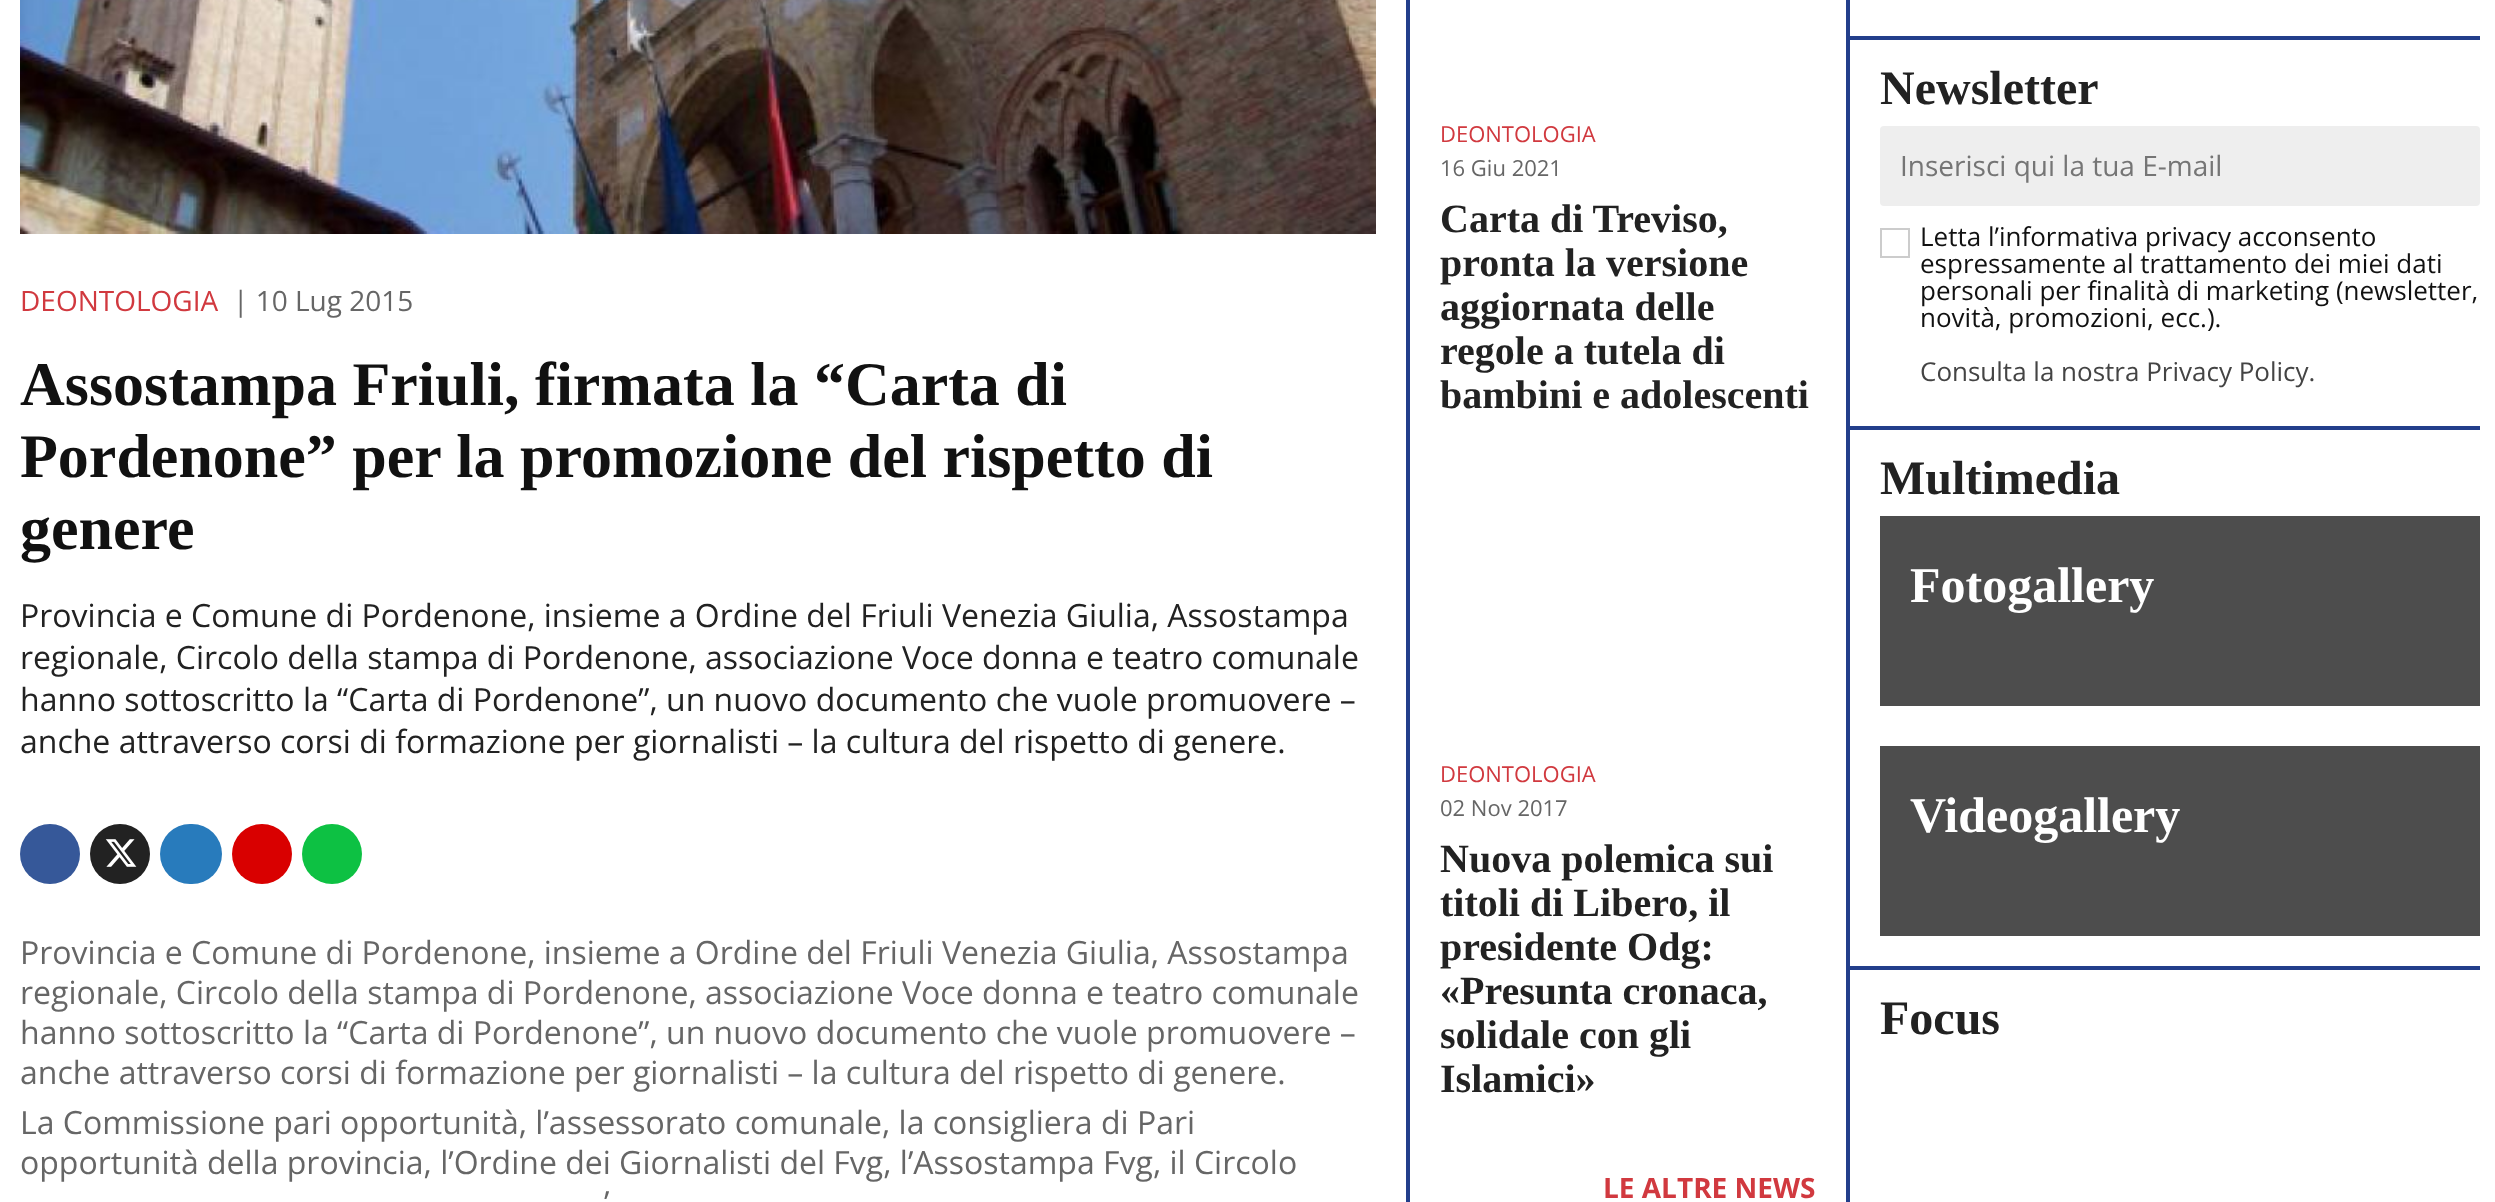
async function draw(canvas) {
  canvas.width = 2495;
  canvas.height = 1202;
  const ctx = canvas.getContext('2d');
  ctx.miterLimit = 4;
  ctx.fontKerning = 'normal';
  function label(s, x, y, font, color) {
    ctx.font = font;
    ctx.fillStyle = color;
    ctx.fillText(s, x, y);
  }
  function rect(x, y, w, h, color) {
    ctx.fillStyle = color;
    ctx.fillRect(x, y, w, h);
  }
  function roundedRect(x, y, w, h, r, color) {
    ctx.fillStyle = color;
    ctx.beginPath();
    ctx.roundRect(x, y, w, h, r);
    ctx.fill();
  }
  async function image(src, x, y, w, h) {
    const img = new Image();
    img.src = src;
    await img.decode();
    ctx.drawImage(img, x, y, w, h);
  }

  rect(0, 0, 2495, 1202, '#fff');
  await image('assets/img1.png', 20, 0, 1356, 234);
  label('DEONTOLOGIA', 20, 311, '28px Open Sans', '#d1393f');
  label('| 10 Lug 2015', 233, 311, '28px Open Sans', '#666');
  label('Assostampa Friuli, firmata la “Carta di', 20, 405, 'bold 62px Liberation Serif', '#111');
  label('Pordenone” per la promozione del rispetto di', 20, 477, 'bold 62px Liberation Serif', '#111');
  label('genere', 20, 549, 'bold 62px Liberation Serif', '#111');
  label('Provincia e Comune di Pordenone, insieme a Ordine del Friuli Venezia Giulia, Assostampa', 20, 627, '32px Open Sans', '#222');
  label('regionale, Circolo della stampa di Pordenone, associazione Voce donna e teatro comunale', 20, 669, '32px Open Sans', '#222');
  label('hanno sottoscritto la “Carta di Pordenone”, un nuovo documento che vuole promuovere –', 20, 711, '32px Open Sans', '#222');
  label('anche attraverso corsi di formazione per giornalisti – la cultura del rispetto di genere.', 20, 753, '32px Open Sans', '#222');
  ctx.fillStyle = '#365899';
  ctx.beginPath();
  ctx.arc(50, 854, 30, 0, 2 * Math.PI);
  ctx.fill();
  ctx.fillStyle = '#222';
  ctx.beginPath();
  ctx.arc(120, 854, 30, 0, 2 * Math.PI);
  ctx.fill();
  await image('assets/img2.png', 105, 839, 32, 28);
  roundedRect(160, 824, 62, 60, 30, '#287bbc');
  ctx.fillStyle = '#d90000';
  ctx.beginPath();
  ctx.arc(262, 854, 30, 0, 2 * Math.PI);
  ctx.fill();
  ctx.fillStyle = '#0dc143';
  ctx.beginPath();
  ctx.arc(332, 854, 30, 0, 2 * Math.PI);
  ctx.fill();
  label('Provincia e Comune di Pordenone, insieme a Ordine del Friuli Venezia Giulia, Assostampa', 20, 964, '32px Open Sans', '#666');
  label('regionale, Circolo della stampa di Pordenone, associazione Voce donna e teatro comunale', 20, 1004, '32px Open Sans', '#666');
  label('hanno sottoscritto la “Carta di Pordenone”, un nuovo documento che vuole promuovere –', 20, 1044, '32px Open Sans', '#666');
  label('anche attraverso corsi di formazione per giornalisti – la cultura del rispetto di genere.', 20, 1084, '32px Open Sans', '#666');
  label('La Commissione pari opportunità, l’assessorato comunale, la consigliera di Pari', 20, 1134, '32px Open Sans', '#666');
  label('opportunità della provincia, l’Ordine dei Giornalisti del Fvg, l’Assostampa Fvg, il Circolo', 20, 1174, '32px Open Sans', '#666');
  label('’', 604, 1214, '32px Open Sans', '#666');
  rect(1406, 0, 4, 1202, '#223e8b');
  label('DEONTOLOGIA', 1440, 142, '22px Open Sans', '#d1393f');
  label('16 Giu 2021', 1440, 176, '22px Open Sans', '#666');
  label('Carta di Treviso,', 1440, 232, 'bold 40px Liberation Serif', '#222');
  label('pronta la versione', 1440, 276, 'bold 40px Liberation Serif', '#222');
  label('aggiornata delle', 1440, 320, 'bold 40px Liberation Serif', '#222');
  label('regole a tutela di', 1440, 364, 'bold 40px Liberation Serif', '#222');
  label('bambini e adolescenti', 1440, 408, 'bold 40px Liberation Serif', '#222');
  label('DEONTOLOGIA', 1440, 782, '22px Open Sans', '#d1393f');
  label('02 Nov 2017', 1440, 816, '22px Open Sans', '#666');
  label('Nuova polemica sui', 1440, 872, 'bold 40px Liberation Serif', '#222');
  label('titoli di Libero, il', 1440, 916, 'bold 40px Liberation Serif', '#222');
  label('presidente Odg:', 1440, 960, 'bold 40px Liberation Serif', '#222');
  label('«Presunta cronaca,', 1440, 1004, 'bold 40px Liberation Serif', '#222');
  label('solidale con gli', 1440, 1048, 'bold 40px Liberation Serif', '#222');
  label('Islamici»', 1440, 1092, 'bold 40px Liberation Serif', '#222');
  label('LE ALTRE NEWS', 1603, 1198, 'bold 28px Open Sans', '#d1393f');
  rect(1846, 0, 4, 1202, '#223e8b');
  rect(1850, 36, 630, 4, '#223e8b');
  rect(1850, 426, 630, 4, '#223e8b');
  label('Newsletter', 1880, 104, 'bold 48px Liberation Serif', '#222');
  ctx.fillStyle = '#eee';
  ctx.beginPath();
  ctx.roundRect(1880, 126, 510, 80, [4, 0, 0, 4]);
  ctx.fill();
  label('Inserisci qui la tua E-mail', 1900, 176, '28px Open Sans', '#757575');
  ctx.fillStyle = '#eee';
  ctx.beginPath();
  ctx.roundRect(2390, 126, 90, 80, [0, 4, 4, 0]);
  ctx.fill();
  ctx.strokeStyle = '#ccc';
  ctx.lineWidth = 2;
  ctx.strokeRect(1881, 229, 28, 28);
  label('Letta l’informativa privacy acconsento', 1920, 246, '26px Open Sans', '#111');
  label('espressamente al trattamento dei miei dati', 1920, 273, '26px Open Sans', '#111');
  label('personali per finalità di marketing (newsletter,', 1920, 300, '26px Open Sans', '#111');
  label('novità, promozioni, ecc.).', 1920, 327, '26px Open Sans', '#111');
  label('Consulta la nostra Privacy Policy.', 1920, 381, '26px Open Sans', '#444');
  rect(1850, 966, 630, 4, '#223e8b');
  label('Multimedia', 1880, 494, 'bold 48px Liberation Serif', '#222');
  rect(1880, 516, 600, 190, '#4d4d4d');
  label('Fotogallery', 1910, 602, 'bold 50px Liberation Serif', '#fff');
  rect(1880, 746, 600, 190, '#4d4d4d');
  label('Videogallery', 1910, 832, 'bold 50px Liberation Serif', '#fff');
  label('Focus', 1880, 1034, 'bold 48px Liberation Serif', '#222');
}

draw(document.querySelector('canvas'));
